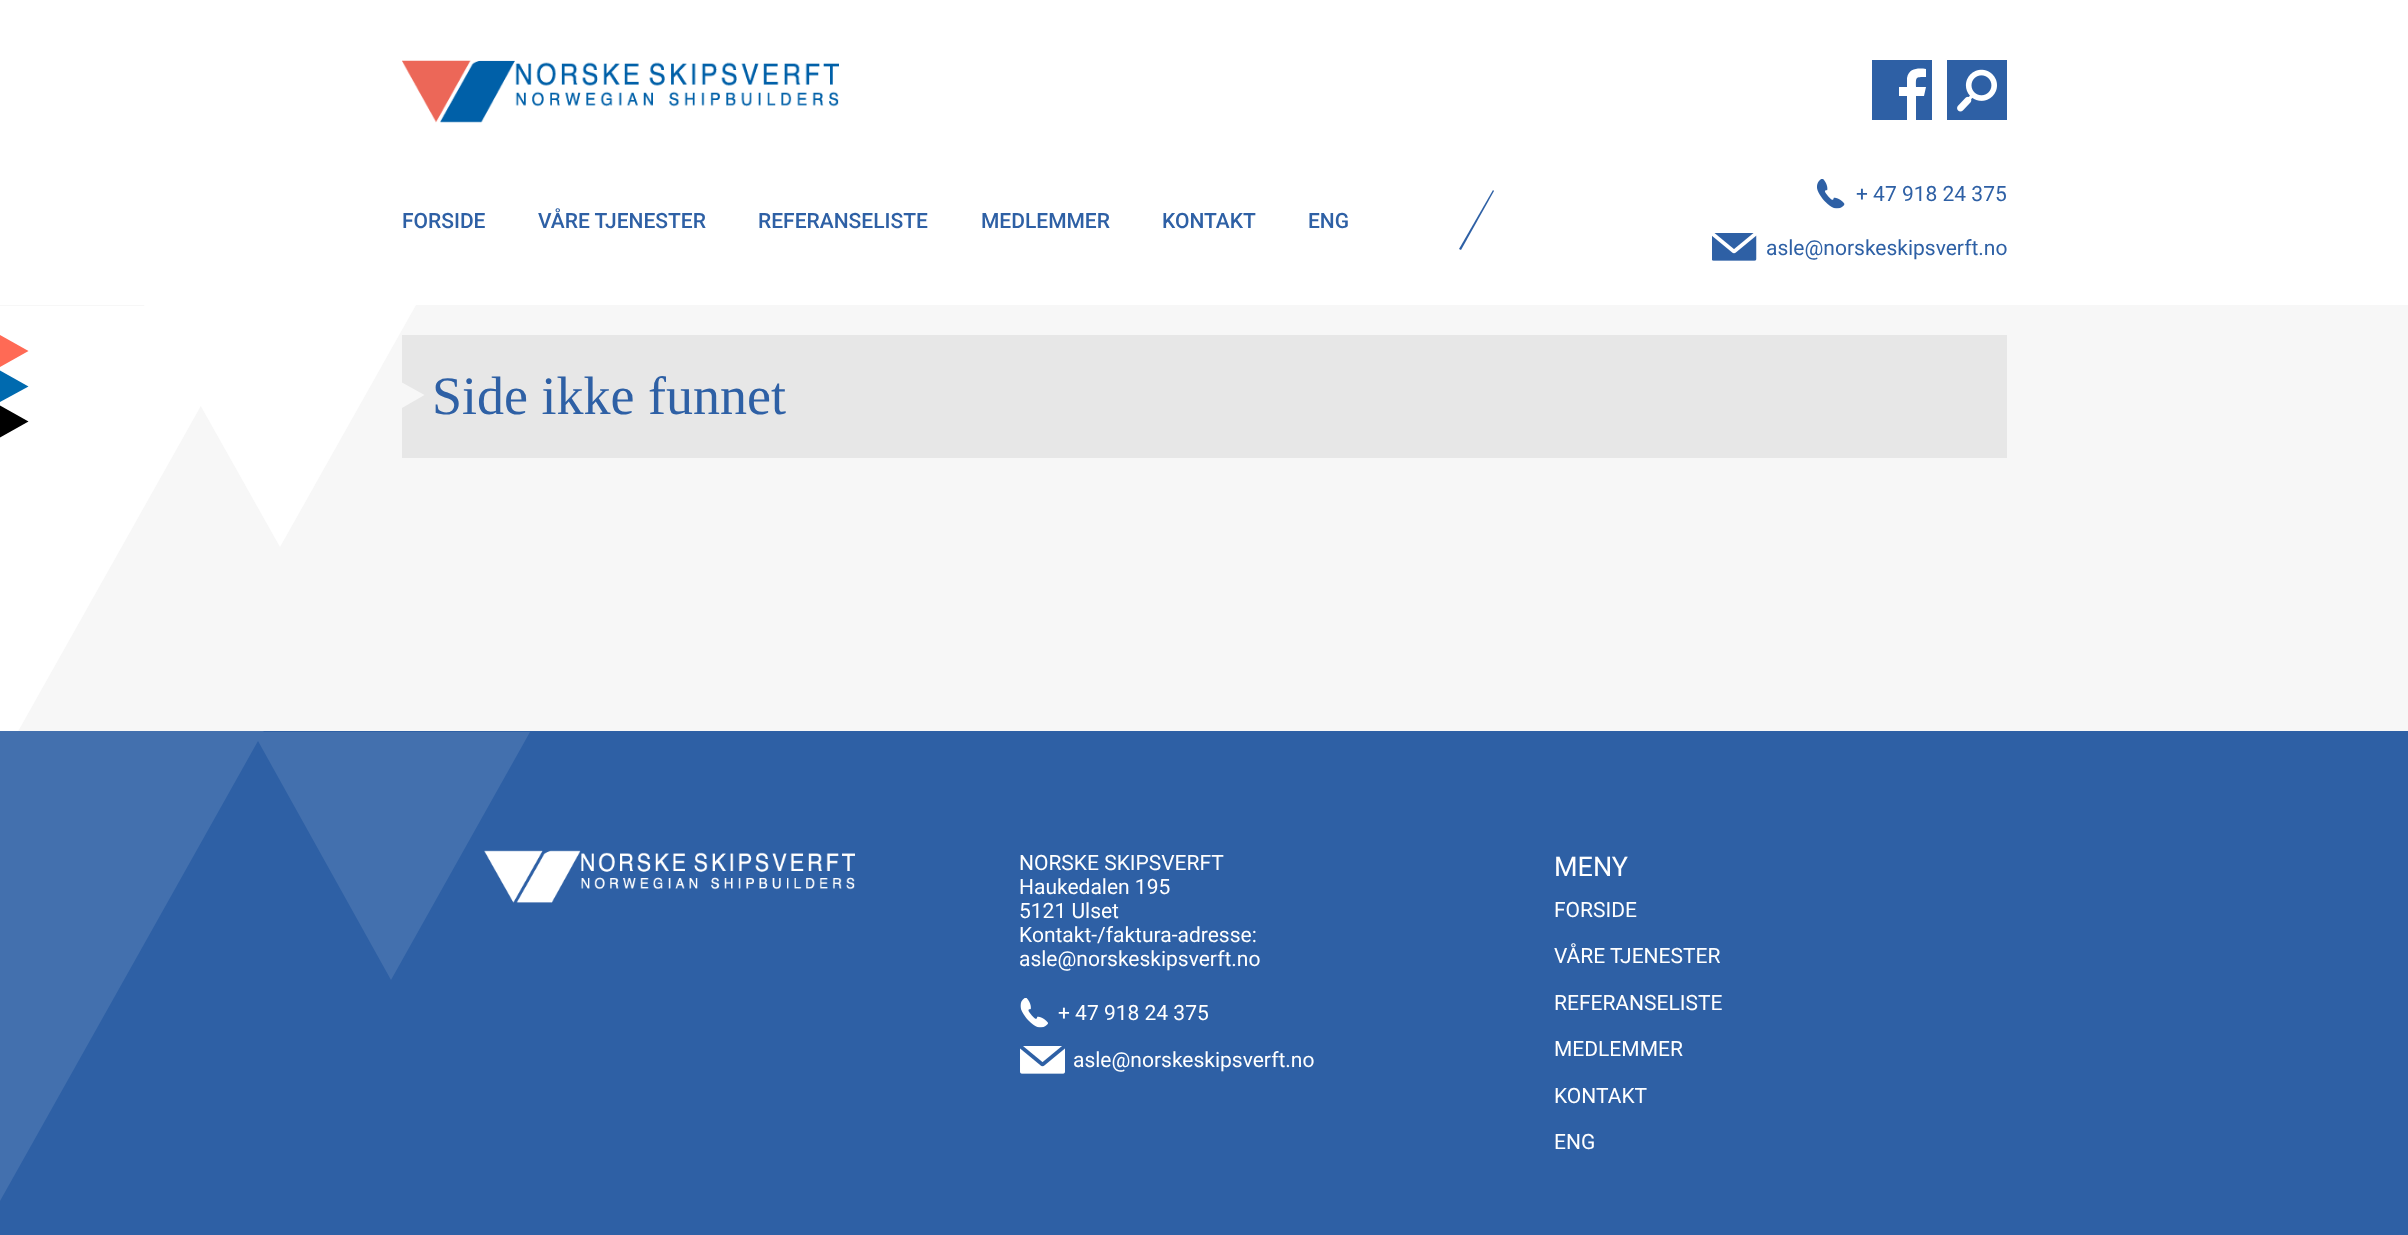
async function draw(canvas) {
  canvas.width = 2408;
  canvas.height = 1235;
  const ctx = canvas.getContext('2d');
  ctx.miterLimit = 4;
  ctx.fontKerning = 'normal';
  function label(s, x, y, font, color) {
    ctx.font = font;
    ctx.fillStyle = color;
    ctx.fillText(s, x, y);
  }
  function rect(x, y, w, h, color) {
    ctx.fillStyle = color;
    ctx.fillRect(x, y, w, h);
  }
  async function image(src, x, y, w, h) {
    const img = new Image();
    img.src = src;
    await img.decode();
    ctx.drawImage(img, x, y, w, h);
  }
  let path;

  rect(0, 0, 2408, 1235, '#fff');
  await image('assets/img1.png', 402, 60, 437, 63);
  rect(1872, 60, 60, 60, '#2e60a5');
  ctx.fillStyle = '#fff';
  path = new Path2D('M1924 96L1926 87H1916C1916 77 1915 77 1926 77V69C1918 68 1909 68 1907 78V87H1899V96H1907V120H1916V96Z');
  ctx.fill(path);
  await image('assets/img2.png', 1947, 60, 60, 60);
  label('FORSIDE', 402, 228, '500 21px Roboto', '#2e60a5');
  label('VÅRE TJENESTER', 538, 228, '500 21px Roboto', '#2e60a5');
  label('REFERANSELISTE', 758, 228, '500 21px Roboto', '#2e60a5');
  label('MEDLEMMER', 981, 228, '500 21px Roboto', '#2e60a5');
  label('KONTAKT', 1162, 228, '500 21px Roboto', '#2e60a5');
  label('ENG', 1308, 228, '500 21px Roboto', '#2e60a5');
  path = new Path2D('M1459 249L1493 190L1494 191L1461 250Z');
  ctx.fill(path);
  await image('assets/img3.png', 1817, 179, 28, 30);
  label('+ 47 918 24 375', 1856, 201, '21px Roboto', '#2e60a5');
  await image('assets/img4.png', 1712, 233, 45, 28);
  label('asle@norskeskipsverft.no', 1766, 255, '21px Roboto', '#2e60a5');
  rect(0, 305, 2408, 426, '#f7f7f7');
  ctx.fillStyle = '#fff';
  path = new Path2D('M0 306V739L7 751L257 306Z');
  ctx.fill(path);
  path = new Path2D('M144 305L280 547L416 305Z');
  ctx.fill(path);
  ctx.fillStyle = '#ff6a55';
  path = new Path2D('M0 335V367L28.5 351Z');
  ctx.fill(path);
  ctx.fillStyle = '#006aaf';
  path = new Path2D('M0 370.5V402L28.5 386.5Z');
  ctx.fill(path);
  ctx.fillStyle = '#000';
  path = new Path2D('M0 405.5V437.5L28.5 421.5Z');
  ctx.fill(path);
  rect(402, 335, 1605, 123, '#e7e7e7');
  ctx.fillStyle = '#f7f7f7';
  path = new Path2D('M402 408L424.5 395L402 382.5Z');
  ctx.fill(path);
  label('Side ikke funnet', 432, 414, '54px Liberation Serif', '#2e60a5');
  rect(0, 731, 2408, 504, '#2e60a5');
  ctx.fillStyle = '#4370ae';
  path = new Path2D('M0 731V1201L258 741L391 980L530 732H263L264 731Z');
  ctx.fill(path);
  await image('assets/img5.png', 484, 850, 371, 53);
  label('NORSKE SKIPSVERFT', 1019, 870, '21px Roboto', '#fff');
  label('Haukedalen 195', 1019, 894, '21px Roboto', '#fff');
  label('5121 Ulset', 1019, 918, '21px Roboto', '#fff');
  label('Kontakt-/faktura-adresse:', 1019, 942, '21px Roboto', '#fff');
  label('asle@norskeskipsverft.no', 1019, 966, '21px Roboto', '#fff');
  await image('assets/img6.png', 1020, 998, 28, 30);
  label('+ 47 918 24 375', 1058, 1020, '21px Roboto', '#fff');
  await image('assets/img7.png', 1020, 1046, 45, 28);
  label('asle@norskeskipsverft.no', 1073, 1067, '21px Roboto', '#fff');
  label('MENY', 1554, 876, '27px Roboto', '#fff');
  label('FORSIDE', 1554, 917, '21px Roboto', '#fff');
  label('VÅRE TJENESTER', 1554, 963, '21px Roboto', '#fff');
  label('REFERANSELISTE', 1554, 1010, '21px Roboto', '#fff');
  label('MEDLEMMER', 1554, 1056, '21px Roboto', '#fff');
  label('KONTAKT', 1554, 1103, '21px Roboto', '#fff');
  label('ENG', 1554, 1149, '21px Roboto', '#fff');
}

draw(document.querySelector('canvas'));
